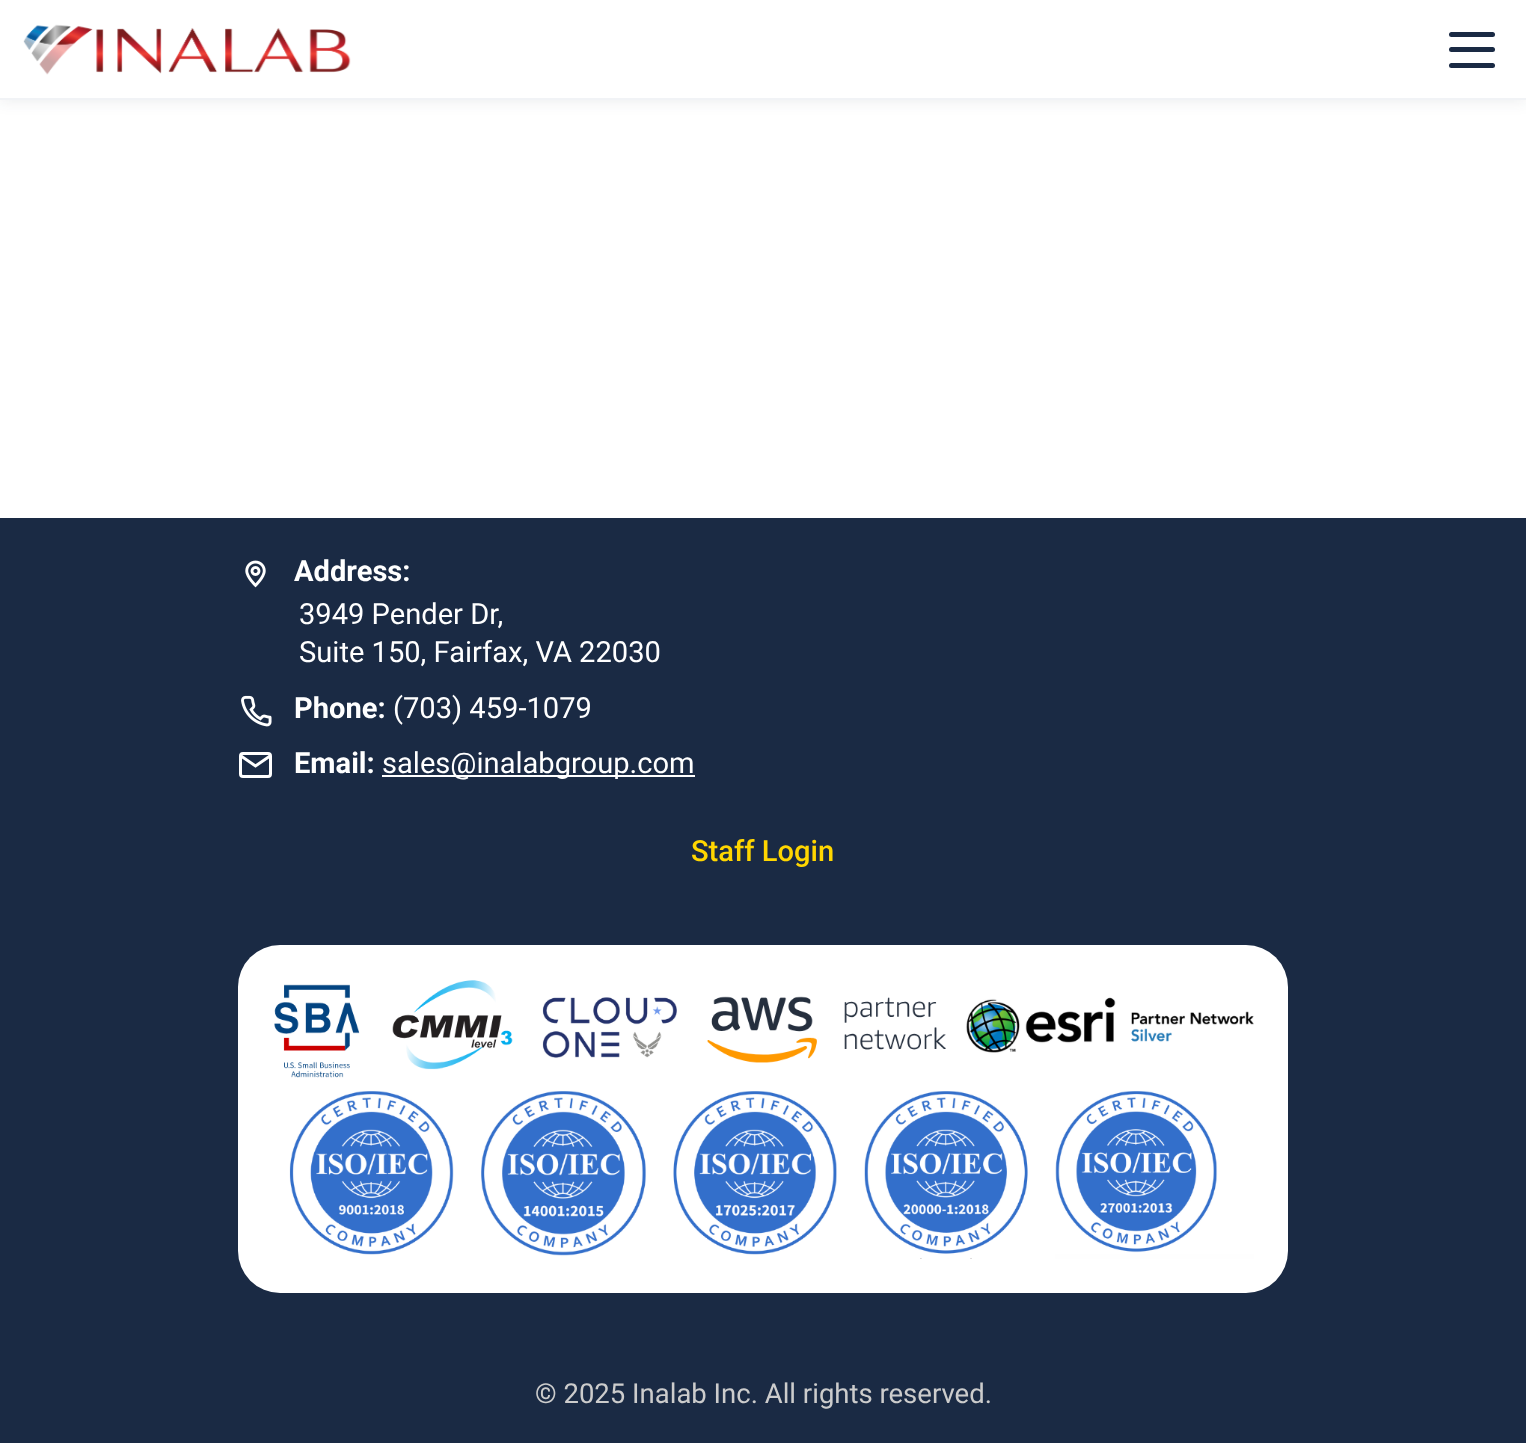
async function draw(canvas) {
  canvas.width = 1526;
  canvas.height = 1443;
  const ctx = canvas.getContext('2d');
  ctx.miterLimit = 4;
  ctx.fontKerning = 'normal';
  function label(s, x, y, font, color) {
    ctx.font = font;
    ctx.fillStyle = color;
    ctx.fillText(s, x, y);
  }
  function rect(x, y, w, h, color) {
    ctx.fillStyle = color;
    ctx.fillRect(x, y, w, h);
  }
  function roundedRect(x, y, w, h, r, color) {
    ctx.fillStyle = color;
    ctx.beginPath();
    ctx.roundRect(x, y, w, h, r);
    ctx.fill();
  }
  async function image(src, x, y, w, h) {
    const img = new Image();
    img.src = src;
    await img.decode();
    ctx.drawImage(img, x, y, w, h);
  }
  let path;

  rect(0, 0, 1526, 1443, '#fff');
  ctx.fillStyle = '#1e293b12';
  ctx.filter = 'blur(7px)';
  ctx.beginPath();
  ctx.rect(0, 4, 1526, 99);
  ctx.fill();
  ctx.filter = 'none';
  rect(0, 0, 1526, 98, '#fff');
  rect(0, 98, 1526, 2, '#f1f3f6');
  await image('assets/img1.png', 23, 24, 328, 51);
  roundedRect(1449, 32, 46, 5, 2.5, '#1a2a44');
  roundedRect(1449, 47, 46, 5, 2.5, '#1a2a44');
  roundedRect(1449, 63, 46, 5, 2.5, '#1a2a44');
  rect(0, 518, 1526, 925, '#1a2a44');
  await image('assets/img2.png', 245, 560, 21, 28);
  label('Address:', 294, 581, 'bold 29.1px Roboto', '#fff');
  label('3949 Pender Dr,', 299, 624, '29.1px Roboto', '#fff');
  label('Suite 150, Fairfax, VA 22030', 299, 662, '29.1px Roboto', '#fff');
  await image('assets/img3.png', 241, 695, 31, 32);
  label('Phone:', 294, 718, 'bold 29.1px Roboto', '#fff');
  label('(703) 459-1079', 393, 718, '29.1px Roboto', '#fff');
  ctx.beginPath();
  ctx.roundRect(240.5, 753.5, 30, 23, 2.5);
  ctx.strokeStyle = '#fff';
  ctx.lineWidth = 3;
  ctx.stroke();
  path = new Path2D('M270 756L255.5 766L241 756');
  ctx.lineWidth = 2.9;
  ctx.stroke(path);
  label('Email:', 294, 773, 'bold 29.1px Roboto', '#fff');
  rect(382, 775, 313, 2, '#fff');
  label('sales@inalabgroup.com', 382, 773, '29.1px Roboto', '#fff');
  label('Staff Login', 691, 861, '500 29.1px Roboto', '#ffd600');
  roundedRect(238, 945, 1050, 348, 42, '#fff');
  await image('assets/img4.png', 274, 980, 980, 279);
  label('© 2025 Inalab Inc. All rights reserved.', 535, 1403, '27.5px Roboto', '#ccc');
}

draw(document.querySelector('canvas'));
